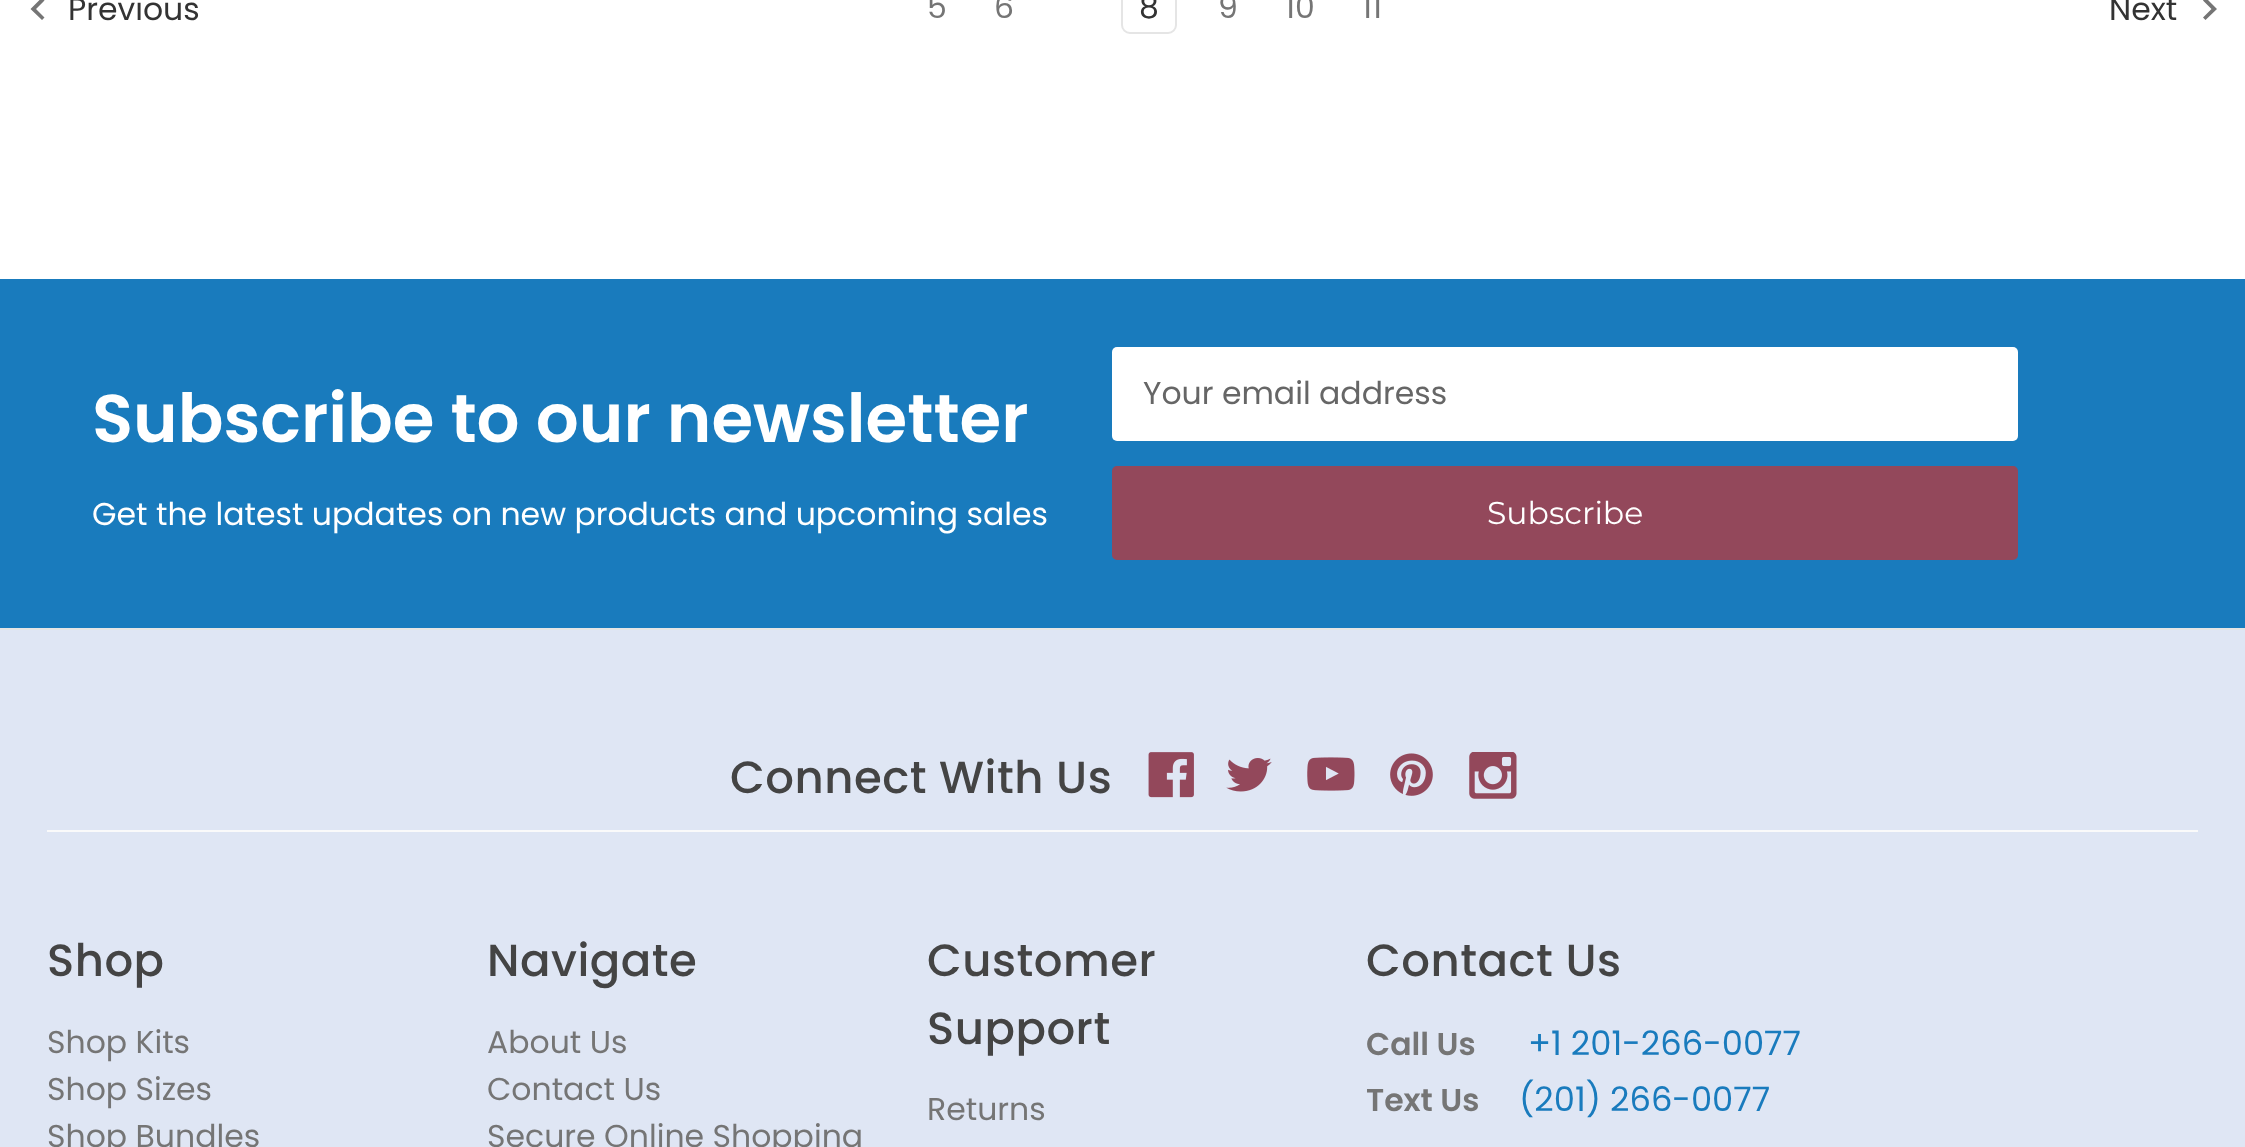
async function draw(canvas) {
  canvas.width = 2245;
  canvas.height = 1147;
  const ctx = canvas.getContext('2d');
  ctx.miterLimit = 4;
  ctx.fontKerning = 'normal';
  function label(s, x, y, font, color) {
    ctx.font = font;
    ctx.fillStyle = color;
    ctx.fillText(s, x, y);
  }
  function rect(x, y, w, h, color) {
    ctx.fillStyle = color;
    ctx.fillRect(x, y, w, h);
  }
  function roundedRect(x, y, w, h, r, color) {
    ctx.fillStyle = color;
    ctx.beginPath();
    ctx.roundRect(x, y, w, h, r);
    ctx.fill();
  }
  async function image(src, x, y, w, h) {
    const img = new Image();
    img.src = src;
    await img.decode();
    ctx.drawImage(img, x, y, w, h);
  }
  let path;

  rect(0, 0, 2245, 1147, '#fff');
  ctx.fillStyle = '#757575';
  path = new Path2D('M44.5 .5L42-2.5L30.5 9L42 20L44.5 17.5L36 9Z');
  ctx.fill(path);
  label('Previous', 68, 20, '31.5px Poppins', '#333');
  label('5', 927, 18, '31.5px Poppins', '#757575');
  label('6', 994, 18, '31.5px Poppins', '#757575');
  ctx.beginPath();
  ctx.roundRect(1122, -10, 54, 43, 8);
  ctx.strokeStyle = '#e5e5e5';
  ctx.lineWidth = 2;
  ctx.stroke();
  label('8', 1139, 18, '31.5px Poppins', '#333');
  label('9', 1218, 18, '31.5px Poppins', '#757575');
  label('10', 1285, 18, '31.5px Poppins', '#757575');
  label('11', 1362, 18, '31.5px Poppins', '#757575');
  label('Next', 2109, 20, '31.5px Poppins', '#333');
  ctx.fillStyle = '#757575';
  path = new Path2D('M2205.5-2.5L2203 .5L2211.5 9L2203 17.5L2205.5 20L2217 9Z');
  ctx.fill(path);
  rect(0, 279, 2245, 349, '#197bbd');
  label('Subscribe to our newsletter', 92, 442, '600 67.5px Poppins', '#fff');
  label('Get the latest updates on new products and upcoming sales', 92, 525, '31.5px Poppins', '#fff');
  roundedRect(1112, 347, 906, 94, 5, '#fff');
  label('Your email address', 1143, 404, '31.5px Poppins', '#666');
  ctx.fillStyle = '#93485b';
  ctx.beginPath();
  ctx.roundRect(1113, 467, 904, 92, 4);
  ctx.fill();
  ctx.strokeStyle = '#93485b';
  ctx.stroke();
  label('Subscribe', 1487, 524, '31.5px Montserrat', '#fff');
  rect(0, 630, 2245, 517, '#dfe6f4');
  rect(0, 628, 2245, 2, '#e5e5e5');
  rect(47, 830, 2151, 2, '#fafafa');
  ctx.letterSpacing = '0.5px';
  label('Connect With Us', 730, 793, '500 45px Poppins', '#444');
  await image('assets/img1.png', 1148, 752, 46, 46);
  await image('assets/img2.png', 1226, 758, 46, 34);
  await image('assets/img3.png', 1307, 757, 48, 34);
  await image('assets/img4.png', 1390, 753, 43, 43);
  await image('assets/img5.png', 1469, 752, 48, 47);
  label('Shop', 47, 976, '500 45px Poppins', '#444');
  ctx.letterSpacing = '0px';
  label('Shop Kits', 47, 1053, '31.5px Poppins', '#757575');
  label('Shop Sizes', 47, 1100, '31.5px Poppins', '#757575');
  label('Shop Bundles', 47, 1147, '31.5px Poppins', '#757575');
  ctx.letterSpacing = '0.5px';
  label('Navigate', 487, 976, '500 45px Poppins', '#444');
  ctx.letterSpacing = '0px';
  label('About Us', 487, 1053, '31.5px Poppins', '#757575');
  label('Contact Us', 487, 1100, '31.5px Poppins', '#757575');
  label('Secure Online Shopping', 487, 1147, '31.5px Poppins', '#757575');
  ctx.letterSpacing = '0.5px';
  label('Customer', 927, 976, '500 45px Poppins', '#444');
  label('Support', 927, 1044, '500 45px Poppins', '#444');
  ctx.letterSpacing = '0px';
  label('Returns', 927, 1120, '31.5px Poppins', '#757575');
  ctx.letterSpacing = '0.5px';
  label('Contact Us', 1366, 976, '500 45px Poppins', '#444');
  ctx.letterSpacing = '0px';
  label('Call Us', 1366, 1055, '600 31.5px Poppins', '#757575');
  label('+1 201-266-0077', 1528, 1055, '33.75px Poppins', '#197bbd');
  label('Text Us', 1366, 1111, '600 31.5px Poppins', '#757575');
  label('(201) 266-0077', 1519, 1111, '33.75px Poppins', '#197bbd');
}

draw(document.querySelector('canvas'));
